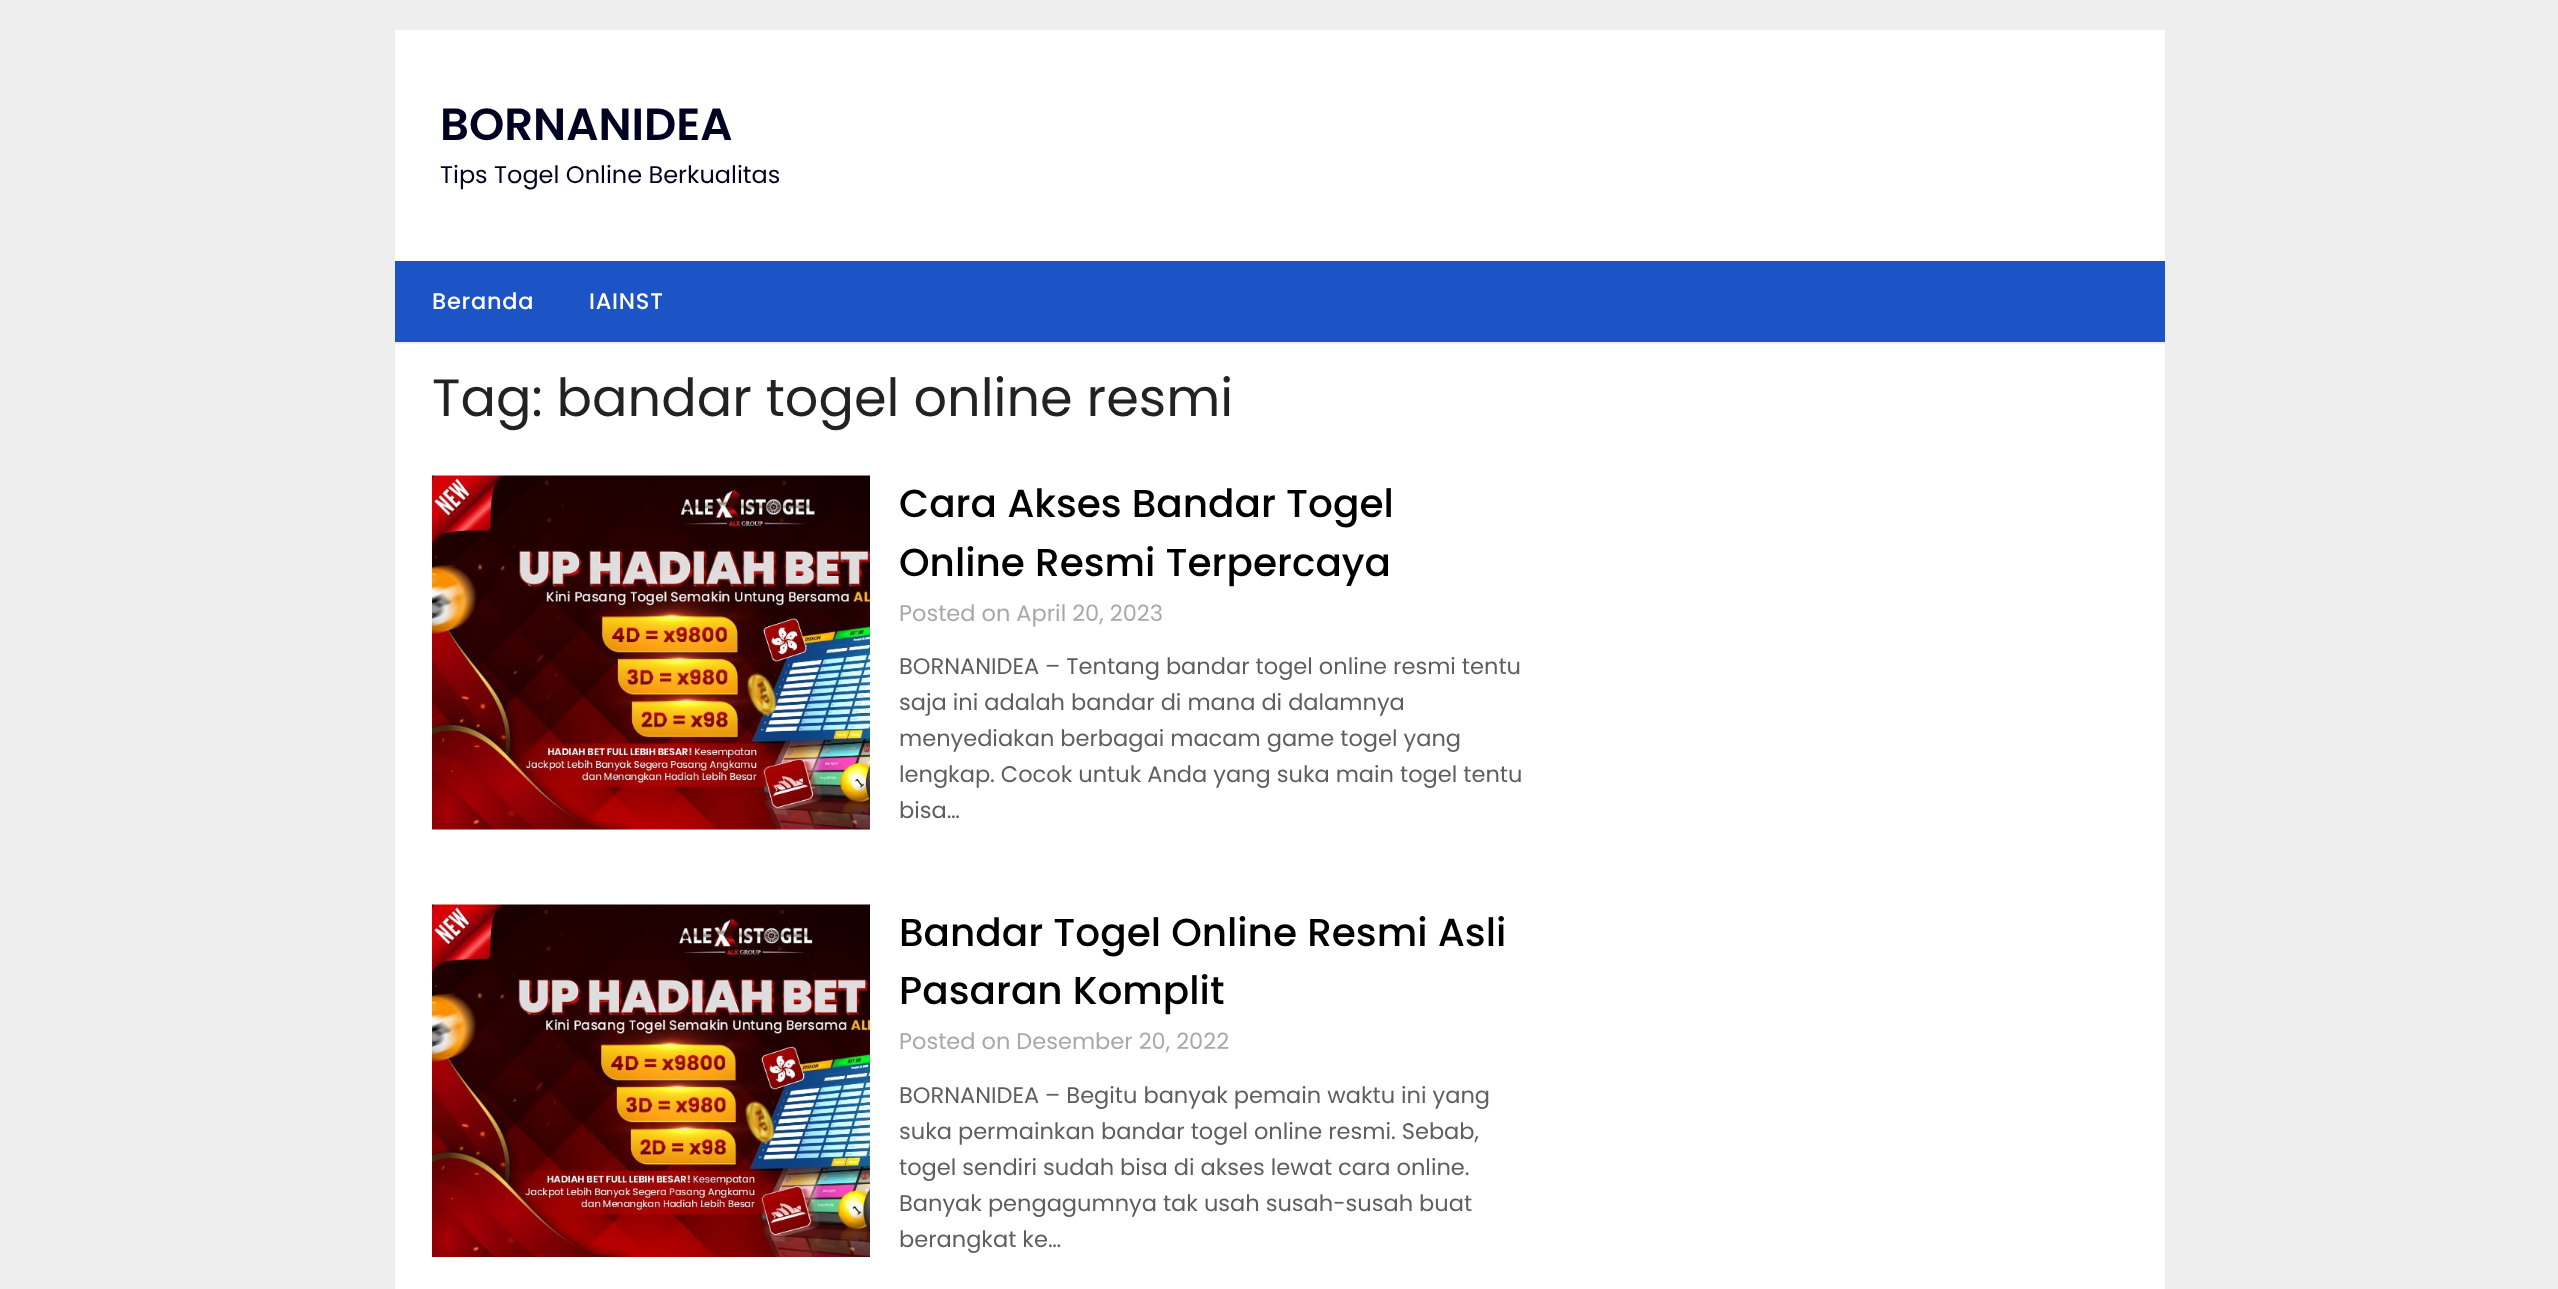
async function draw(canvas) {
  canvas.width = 2558;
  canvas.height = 1289;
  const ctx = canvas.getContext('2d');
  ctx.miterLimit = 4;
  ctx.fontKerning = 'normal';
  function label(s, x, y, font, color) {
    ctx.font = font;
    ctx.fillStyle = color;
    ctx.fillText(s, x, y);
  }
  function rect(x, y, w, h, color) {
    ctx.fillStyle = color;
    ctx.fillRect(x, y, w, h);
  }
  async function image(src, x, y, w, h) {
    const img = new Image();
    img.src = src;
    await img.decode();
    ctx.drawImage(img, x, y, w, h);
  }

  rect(0, 0, 2558, 1289, '#eee');
  rect(395, 30, 1770, 231, '#fff');
  label('BORNANIDEA', 440, 140, '600 45px Poppins', '#000222');
  label('Tips Togel Online Berkualitas', 440, 183, '24px Poppins', '#000222');
  rect(395, 261, 1770, 81, '#1c53c5');
  ctx.letterSpacing = '0.75px';
  label('Beranda', 432, 309, '500 22.5px Poppins', '#fff');
  label('IAINST', 589, 309, '500 22.5px Poppins', '#fff');
  rect(395, 344, 1770, 945, '#fff');
  ctx.letterSpacing = '0px';
  label('Tag: bandar togel online resmi', 432, 416, '52.5px Poppins', '#222');
  await image('assets/img1.png', 432, 475, 438, 355);
  label('Cara Akses Bandar Togel', 899, 517, '500 39px Poppins', '#000');
  label('Online Resmi Terpercaya', 899, 576, '500 39px Poppins', '#000');
  label('Posted on April 20, 2023', 899, 621, '22.5px Poppins', '#a8a8a8');
  label('BORNANIDEA – Tentang bandar togel online resmi tentu', 899, 674, '22.5px Poppins', '#5e5e5e');
  label('saja ini adalah bandar di mana di dalamnya', 899, 710, '22.5px Poppins', '#5e5e5e');
  label('menyediakan berbagai macam game togel yang', 899, 746, '22.5px Poppins', '#5e5e5e');
  label('lengkap. Cocok untuk Anda yang suka main togel tentu', 899, 782, '22.5px Poppins', '#5e5e5e');
  label('bisa…', 899, 818, '22.5px Poppins', '#5e5e5e');
  await image('assets/img2.png', 432, 904, 438, 353);
  label('Bandar Togel Online Resmi Asli', 899, 946, '500 39px Poppins', '#000');
  label('Pasaran Komplit', 899, 1004, '500 39px Poppins', '#000');
  label('Posted on Desember 20, 2022', 899, 1049, '22.5px Poppins', '#a8a8a8');
  label('BORNANIDEA – Begitu banyak pemain waktu ini yang', 899, 1103, '22.5px Poppins', '#5e5e5e');
  label('suka permainkan bandar togel online resmi. Sebab,', 899, 1139, '22.5px Poppins', '#5e5e5e');
  label('togel sendiri sudah bisa di akses lewat cara online.', 899, 1175, '22.5px Poppins', '#5e5e5e');
  label('Banyak pengagumnya tak usah susah-susah buat', 899, 1211, '22.5px Poppins', '#5e5e5e');
  label('berangkat ke…', 899, 1247, '22.5px Poppins', '#5e5e5e');
}

draw(document.querySelector('canvas'));
